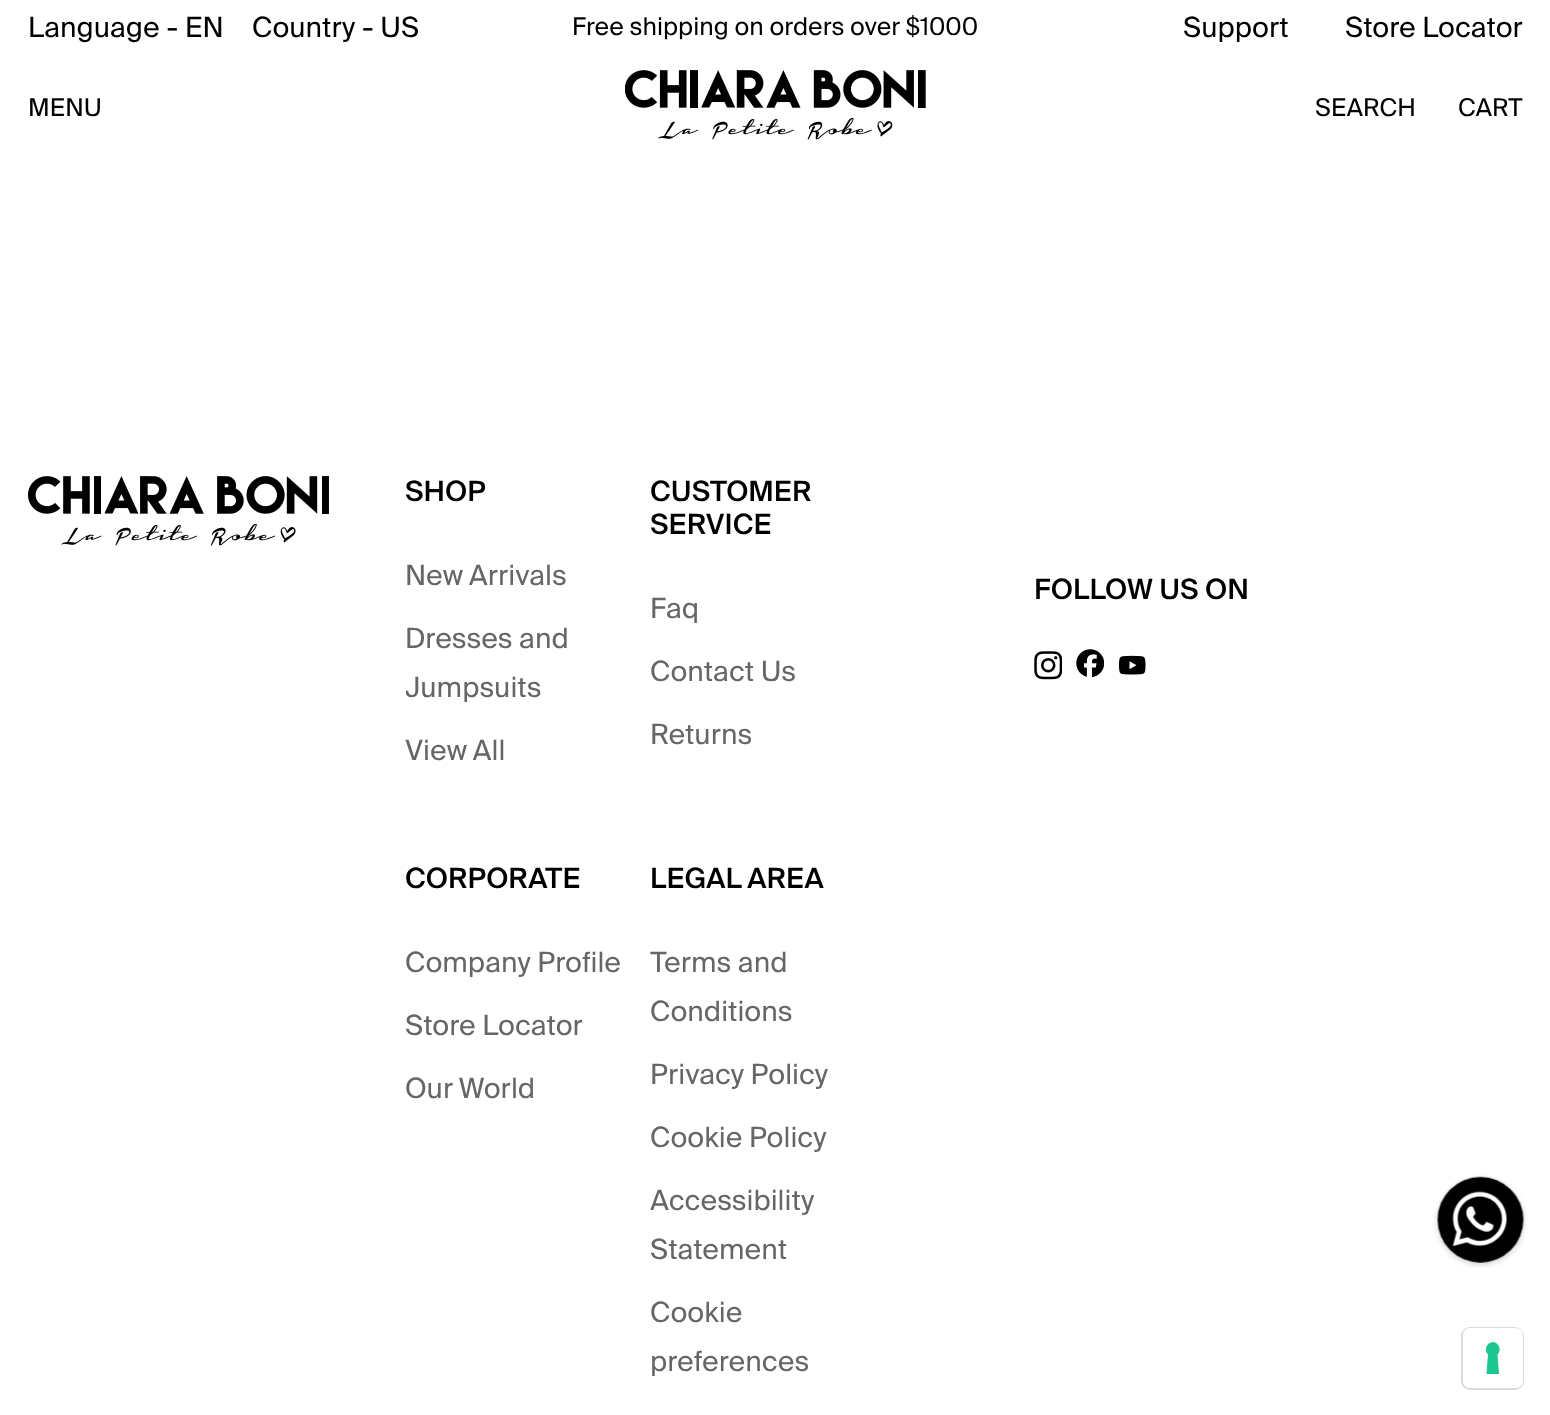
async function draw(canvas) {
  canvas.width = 1550;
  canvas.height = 1415;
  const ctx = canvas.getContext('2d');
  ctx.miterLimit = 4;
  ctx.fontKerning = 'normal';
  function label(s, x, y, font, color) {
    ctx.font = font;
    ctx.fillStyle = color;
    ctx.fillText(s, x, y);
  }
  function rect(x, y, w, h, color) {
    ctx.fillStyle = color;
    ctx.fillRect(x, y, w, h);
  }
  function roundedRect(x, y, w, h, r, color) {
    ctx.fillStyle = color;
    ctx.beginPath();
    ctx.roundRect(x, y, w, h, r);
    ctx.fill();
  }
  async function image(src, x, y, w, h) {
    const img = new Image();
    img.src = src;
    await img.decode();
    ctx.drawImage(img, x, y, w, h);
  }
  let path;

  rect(0, 0, 1550, 1415, '#fff');
  label('Language - EN', 28, 37, '28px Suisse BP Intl', '#000');
  label('Country - US', 252, 37, '28px Suisse BP Intl', '#000');
  label('Free shipping on orders over $1000', 572, 35, '24.5px Suisse BP Intl', '#000');
  label('Support', 1183, 37, '28px Suisse BP Intl', '#000');
  label('Store Locator', 1345, 37, '28px Suisse BP Intl', '#000');
  label('MENU', 28, 116, '24.5px Suisse BP Intl', '#000');
  await image('assets/img1.png', 625, 70, 301, 70);
  label('SEARCH', 1315, 116, '24.5px Suisse BP Intl', '#000');
  label('CART', 1458, 116, '24.5px Suisse BP Intl', '#000');
  await image('assets/img2.png', 28, 476, 301, 70);
  label('SHOP', 405, 501, '500 28px Suisse BP Intl', '#000');
  label('New Arrivals', 405, 585, '28px Suisse BP Intl', '#666');
  label('Dresses and', 405, 648, '28px Suisse BP Intl', '#666');
  ctx.save();
  ctx.beginPath();
  ctx.rect(406, 551, 226, 224);
  ctx.clip();
  label('Jumpsuits', 405, 697, '28px Suisse BP Intl', '#666');
  ctx.restore();
  label('View All', 405, 760, '28px Suisse BP Intl', '#666');
  label('CUSTOMER', 650, 501, '500 28px Suisse BP Intl', '#000');
  label('SERVICE', 650, 534, '500 28px Suisse BP Intl', '#000');
  label('Faq', 650, 618, '28px Suisse BP Intl', '#666');
  label('Contact Us', 650, 681, '28px Suisse BP Intl', '#666');
  label('Returns', 650, 744, '28px Suisse BP Intl', '#666');
  label('CORPORATE', 405, 888, '500 28px Suisse BP Intl', '#000');
  label('Company Profile', 405, 972, '28px Suisse BP Intl', '#666');
  label('Store Locator', 405, 1035, '28px Suisse BP Intl', '#666');
  label('Our World', 405, 1098, '28px Suisse BP Intl', '#666');
  label('LEGAL AREA', 650, 888, '500 28px Suisse BP Intl', '#000');
  label('Terms and', 650, 972, '28px Suisse BP Intl', '#666');
  label('Conditions', 650, 1021, '28px Suisse BP Intl', '#666');
  label('Privacy Policy', 650, 1084, '28px Suisse BP Intl', '#666');
  label('Cookie Policy', 650, 1147, '28px Suisse BP Intl', '#666');
  label('Accessibility', 650, 1210, '28px Suisse BP Intl', '#666');
  label('Statement', 650, 1259, '28px Suisse BP Intl', '#666');
  label('Cookie', 650, 1322, '28px Suisse BP Intl', '#666');
  label('preferences', 650, 1371, '28px Suisse BP Intl', '#666');
  label('FOLLOW US ON', 1034, 599, '500 28px Suisse BP Intl', '#000');
  await image('assets/img3.png', 1034, 651, 28, 29);
  await image('assets/img4.png', 1076, 649, 28, 28);
  await image('assets/img5.png', 1119, 655, 27, 20);
  await image('assets/img6.png', 1434, 1175, 93, 93);
  ctx.beginPath();
  ctx.roundRect(1462, 1328, 61, 61, 8);
  ctx.strokeStyle = '#d9d9d9';
  ctx.lineWidth = 2;
  ctx.stroke();
  roundedRect(1463, 1328, 60, 60, 7, '#fff');
  ctx.fillStyle = '#1cc691';
  path = new Path2D('M1493 1342C1499 1342.5 1502 1350.5 1497.5 1354.5L1499 1374H1486.5L1488 1354.5C1483.5 1350.5 1486.5 1342.5 1493 1342Z');
  ctx.fill(path, 'evenodd');
}

draw(document.querySelector('canvas'));
